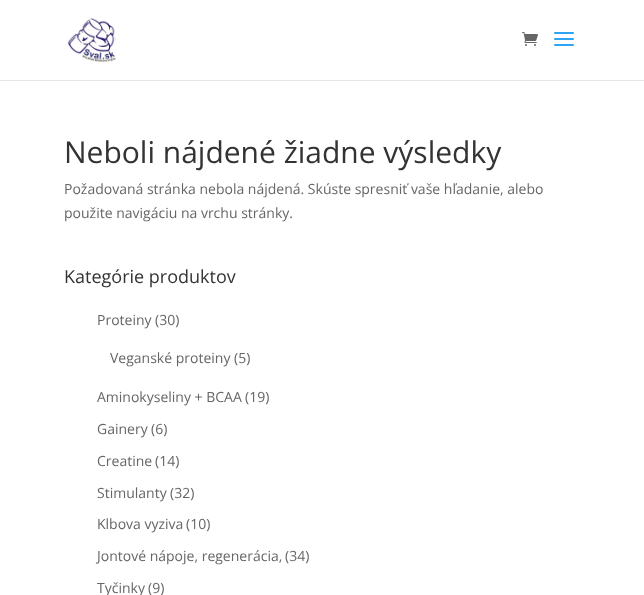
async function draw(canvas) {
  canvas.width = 644;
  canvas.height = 595;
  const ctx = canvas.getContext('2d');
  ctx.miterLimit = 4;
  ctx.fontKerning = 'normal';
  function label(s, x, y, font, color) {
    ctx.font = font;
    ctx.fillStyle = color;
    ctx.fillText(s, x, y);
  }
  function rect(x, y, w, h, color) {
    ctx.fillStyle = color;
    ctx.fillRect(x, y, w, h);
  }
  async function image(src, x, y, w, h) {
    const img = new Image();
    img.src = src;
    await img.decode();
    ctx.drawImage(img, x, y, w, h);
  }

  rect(0, 0, 644, 595, '#fff');
  rect(0, 80, 644, 1, '#e6e6e6');
  await image('assets/img1.png', 68, 18, 48, 44);
  await image('assets/img2.png', 522, 32, 16, 14);
  await image('assets/img3.png', 554, 32, 20, 14);
  label('Neboli nájdené žiadne výsledky', 64, 163, '30px Open Sans', '#333');
  label('Požadovaná stránka nebola nájdená. Skúste spresniť vaše hľadanie, alebo', 64, 194, '14px Open Sans', '#666');
  label('použite navigáciu na vrchu stránky.', 64, 218, '14px Open Sans', '#666');
  label('Kategórie produktov', 64, 283, '18px Open Sans', '#333');
  label('Proteiny', 97, 325, '14px Open Sans', '#666');
  label('(30)', 155, 325, '14px Open Sans', '#666');
  label('Veganské proteiny', 110, 363, '14px Open Sans', '#666');
  label('(5)', 234, 363, '14px Open Sans', '#666');
  label('Aminokyseliny + BCAA', 97, 402, '14px Open Sans', '#666');
  label('(19)', 245, 402, '14px Open Sans', '#666');
  label('Gainery', 97, 434, '14px Open Sans', '#666');
  label('(6)', 151, 434, '14px Open Sans', '#666');
  label('Creatine', 97, 466, '14px Open Sans', '#666');
  label('(14)', 155, 466, '14px Open Sans', '#666');
  label('Stimulanty', 97, 498, '14px Open Sans', '#666');
  label('(32)', 170, 498, '14px Open Sans', '#666');
  label('Klbova vyziva', 97, 529, '14px Open Sans', '#666');
  label('(10)', 186, 529, '14px Open Sans', '#666');
  label('Jontové nápoje, regenerácia,', 97, 561, '14px Open Sans', '#666');
  label('(34)', 285, 561, '14px Open Sans', '#666');
  label('Tyčinky', 97, 593, '14px Open Sans', '#666');
  label('(9)', 148, 593, '14px Open Sans', '#666');
}

draw(document.querySelector('canvas'));
